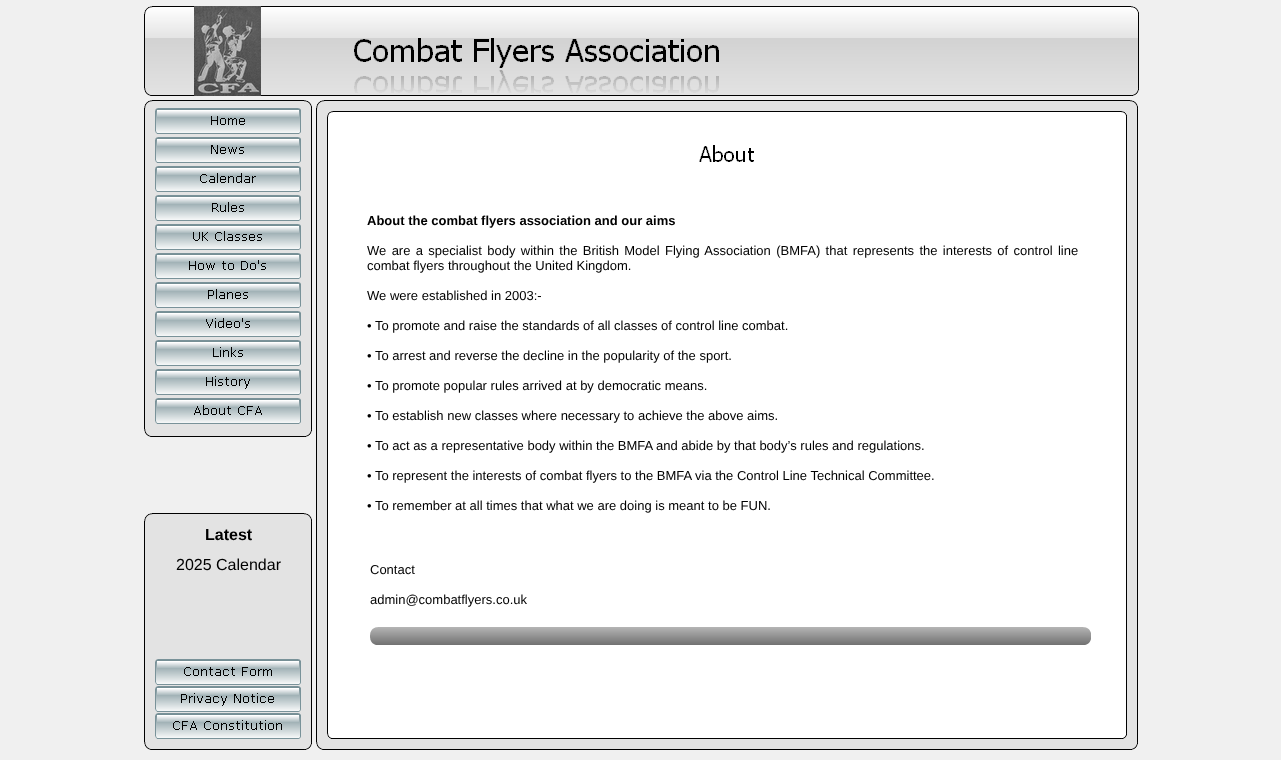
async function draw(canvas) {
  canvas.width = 1281;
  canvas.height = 760;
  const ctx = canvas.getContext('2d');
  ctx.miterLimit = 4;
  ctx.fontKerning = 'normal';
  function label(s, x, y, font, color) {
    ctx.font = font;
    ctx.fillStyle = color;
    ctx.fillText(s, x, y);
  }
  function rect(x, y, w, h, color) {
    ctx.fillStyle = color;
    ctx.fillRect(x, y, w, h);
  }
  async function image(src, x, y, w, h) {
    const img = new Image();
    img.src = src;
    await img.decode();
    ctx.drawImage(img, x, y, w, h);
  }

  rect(0, 0, 1281, 760, '#f0f0f0');
  await image('assets/img1.png', 144, 6, 995, 90);
  await image('assets/img2.png', 194, 6, 67, 90);
  await image('assets/img3.png', 354, 38, 365, 55);
  await image('assets/img4.png', 144, 100, 168, 337);
  await image('assets/img5.png', 316, 100, 822, 650);
  await image('assets/img6.png', 155, 108, 146, 26);
  await image('assets/img7.png', 155, 137, 146, 26);
  await image('assets/img8.png', 155, 166, 146, 26);
  await image('assets/img9.png', 155, 195, 146, 26);
  await image('assets/img10.png', 155, 224, 146, 26);
  await image('assets/img11.png', 155, 253, 146, 26);
  await image('assets/img12.png', 155, 282, 146, 26);
  await image('assets/img13.png', 155, 311, 146, 26);
  await image('assets/img14.png', 155, 340, 146, 26);
  await image('assets/img15.png', 155, 369, 146, 26);
  await image('assets/img16.png', 155, 398, 146, 26);
  await image('assets/img17.png', 327, 111, 800, 628);
  await image('assets/img18.png', 699, 145, 55, 17);
  label('About the combat flyers association and our aims', 367, 225, 'bold 13px Liberation Sans', '#000');
  ctx.wordSpacing = '1.75px';
  label('We are a specialist body within the British Model Flying Association (BMFA) that represents the interests of control line', 367, 255, '13px Liberation Sans', '#000');
  ctx.wordSpacing = '0px';
  label('combat flyers throughout the United Kingdom.', 367, 270, '13px Liberation Sans', '#000');
  label('We were established in 2003:-', 367, 300, '13px Liberation Sans', '#000');
  label('• To promote and raise the standards of all classes of control line combat.', 367, 330, '13px Liberation Sans', '#000');
  label('• To arrest and reverse the decline in the popularity of the sport.', 367, 360, '13px Liberation Sans', '#000');
  label('• To promote popular rules arrived at by democratic means.', 367, 390, '13px Liberation Sans', '#000');
  label('• To establish new classes where necessary to achieve the above aims.', 367, 420, '13px Liberation Sans', '#000');
  label('• To act as a representative body within the BMFA and abide by that body’s rules and regulations.', 367, 450, '13px Liberation Sans', '#000');
  label('• To represent the interests of combat flyers to the BMFA via the Control Line Technical Committee.', 367, 480, '13px Liberation Sans', '#000');
  label('• To remember at all times that what we are doing is meant to be FUN.', 367, 510, '13px Liberation Sans', '#000');
  await image('assets/img19.png', 144, 513, 168, 237);
  label('Latest', 205, 540, 'bold 16px Liberation Sans', '#000');
  label('2025 Calendar', 176, 570, '16px Liberation Sans', '#000');
  label('Contact', 370, 574, '13px Liberation Sans', '#000');
  label('admin@combatflyers.co.uk', 370, 604, '13px Liberation Sans', '#000');
  await image('assets/img20.png', 370, 627, 721, 18);
  await image('assets/img21.png', 155, 659, 146, 26);
  await image('assets/img22.png', 155, 686, 146, 26);
  await image('assets/img23.png', 155, 713, 146, 26);
}

draw(document.querySelector('canvas'));
